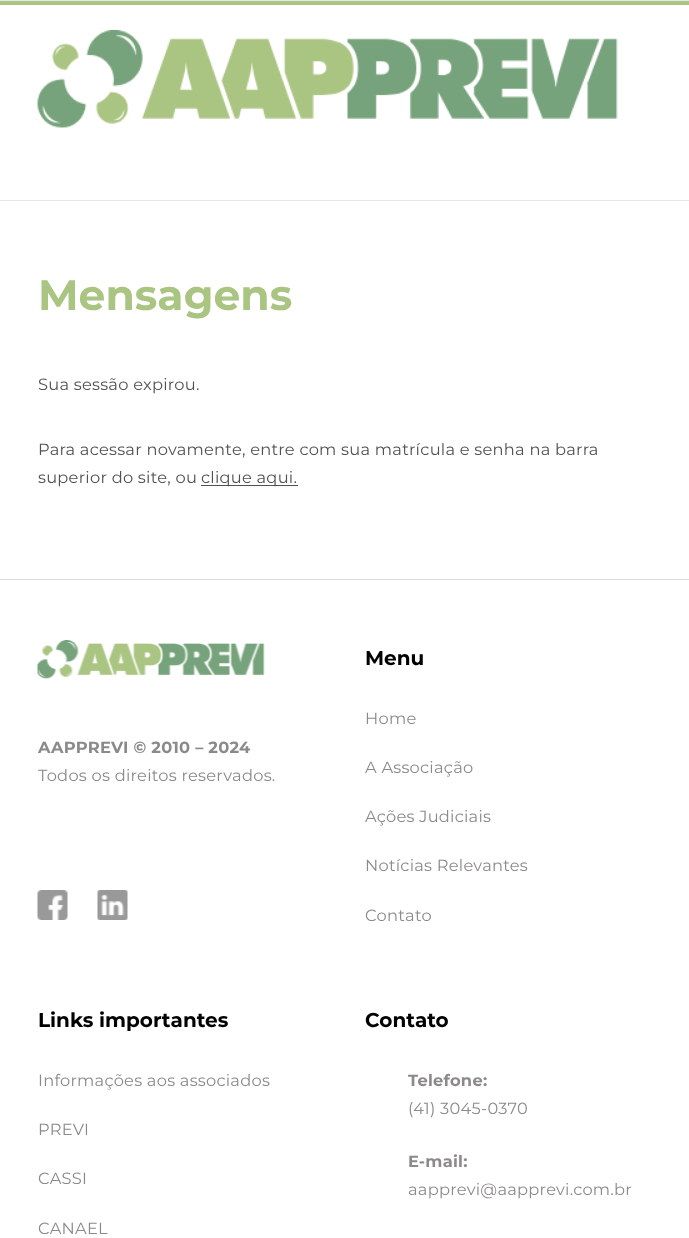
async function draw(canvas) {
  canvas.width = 689;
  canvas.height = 1238;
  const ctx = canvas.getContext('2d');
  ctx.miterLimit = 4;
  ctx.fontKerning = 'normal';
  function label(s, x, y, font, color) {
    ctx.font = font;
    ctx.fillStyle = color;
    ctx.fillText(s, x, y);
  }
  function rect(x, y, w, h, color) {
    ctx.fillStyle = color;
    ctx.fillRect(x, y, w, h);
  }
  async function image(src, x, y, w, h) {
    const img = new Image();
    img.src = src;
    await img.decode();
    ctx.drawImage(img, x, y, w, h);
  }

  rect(0, 0, 689, 1238, '#fff');
  rect(0, 0, 689, 1, '#e5e5e5');
  rect(0, 1, 689, 4, '#aac481');
  rect(0, 200, 689, 1, '#e5e5e5');
  await image('assets/img1.png', 37, 30, 581, 98);
  label('Mensagens', 38, 310, 'bold 42.5px Montserrat', '#aac481');
  ctx.letterSpacing = '0.25px';
  label('Sua sessão expirou.', 38, 390, '16.25px Montserrat', '#515151');
  label('Para acessar novamente, entre com sua matrícula e senha na barra', 38, 455, '16.25px Montserrat', '#515151');
  label('superior do site, ou', 38, 483, '16.25px Montserrat', '#515151');
  rect(201, 485, 97, 1, '#515151');
  label('clique aqui.', 201, 483, '16.25px Montserrat', '#515151');
  rect(0, 579, 689, 1, '#ddd');
  await image('assets/img2.png', 37, 640, 228, 39);
  label('AAPPREVI © 2010 – 2024', 38, 753, 'bold 16.25px Montserrat', '#8c8989');
  label('Todos os direitos reservados.', 38, 781, '16.25px Montserrat', '#8c8989');
  await image('assets/img3.png', 37, 890, 31, 30);
  await image('assets/img4.png', 97, 890, 31, 30);
  ctx.letterSpacing = '0px';
  label('Menu', 365, 665, 'bold 20px Montserrat', '#000');
  ctx.letterSpacing = '0.25px';
  label('Home', 365, 724, '16.25px Montserrat', '#8c8989');
  label('A Associação', 365, 773, '16.25px Montserrat', '#8c8989');
  label('Ações Judiciais', 365, 822, '16.25px Montserrat', '#8c8989');
  label('Notícias Relevantes', 365, 871, '16.25px Montserrat', '#8c8989');
  label('Contato', 365, 921, '16.25px Montserrat', '#8c8989');
  ctx.letterSpacing = '0px';
  label('Links importantes', 38, 1027, 'bold 20px Montserrat', '#000');
  ctx.letterSpacing = '0.25px';
  label('Informações aos associados', 38, 1086, '16.25px Montserrat', '#8c8989');
  label('PREVI', 38, 1135, '16.25px Montserrat', '#8c8989');
  label('CASSI', 38, 1184, '16.25px Montserrat', '#8c8989');
  label('CANAEL', 38, 1234, '16.25px Montserrat', '#8c8989');
  ctx.letterSpacing = '0px';
  label('Contato', 365, 1027, 'bold 20px Montserrat', '#000');
  ctx.letterSpacing = '0.25px';
  label('Telefone:', 408, 1086, 'bold 16.25px Montserrat', '#8c8989');
  label('(41) 3045-0370', 408, 1114, '16.25px Montserrat', '#8c8989');
  label('E-mail:', 408, 1167, 'bold 16.25px Montserrat', '#8c8989');
  label('aapprevi@aapprevi.com.br', 408, 1195, '16.25px Montserrat', '#8c8989');
}

draw(document.querySelector('canvas'));
